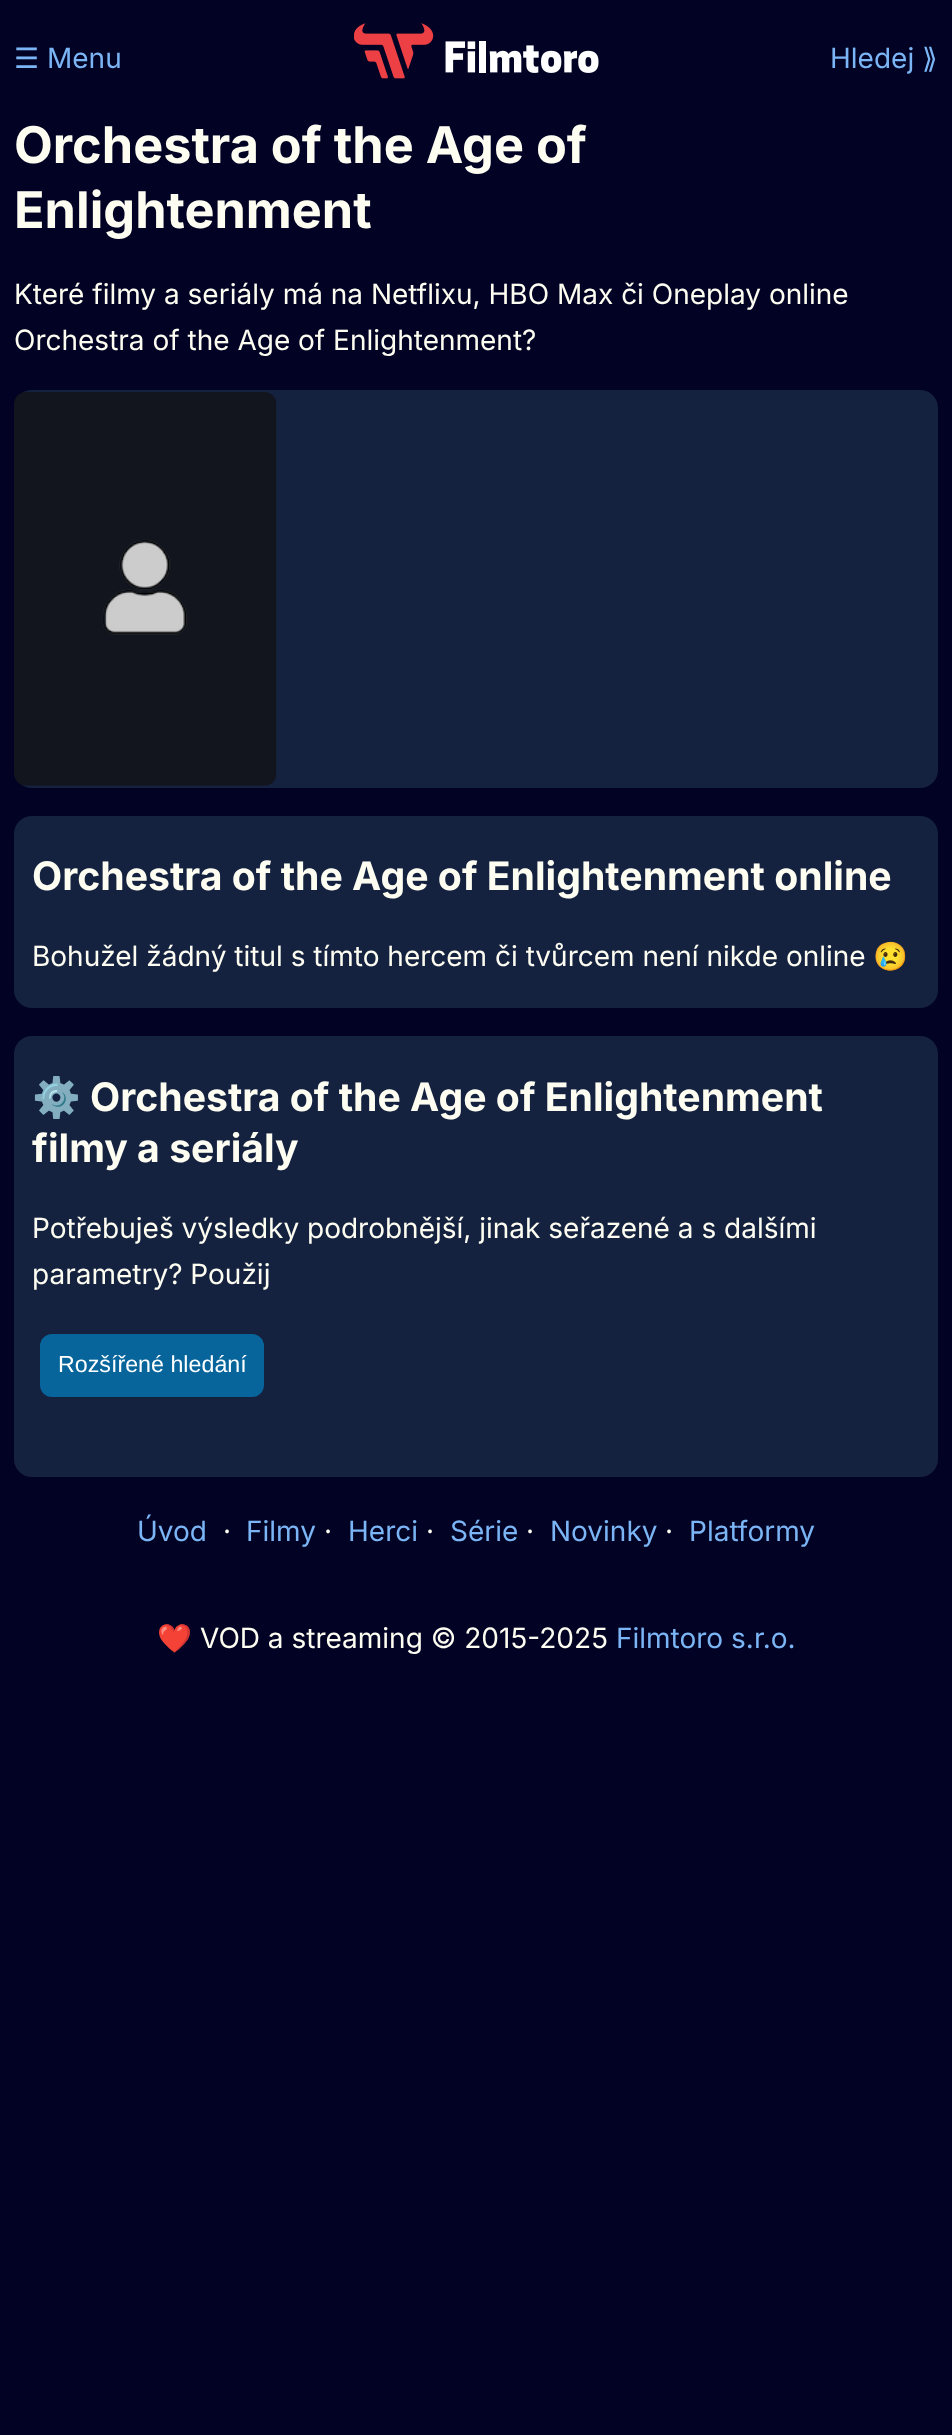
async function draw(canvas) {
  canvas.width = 952;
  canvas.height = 2435;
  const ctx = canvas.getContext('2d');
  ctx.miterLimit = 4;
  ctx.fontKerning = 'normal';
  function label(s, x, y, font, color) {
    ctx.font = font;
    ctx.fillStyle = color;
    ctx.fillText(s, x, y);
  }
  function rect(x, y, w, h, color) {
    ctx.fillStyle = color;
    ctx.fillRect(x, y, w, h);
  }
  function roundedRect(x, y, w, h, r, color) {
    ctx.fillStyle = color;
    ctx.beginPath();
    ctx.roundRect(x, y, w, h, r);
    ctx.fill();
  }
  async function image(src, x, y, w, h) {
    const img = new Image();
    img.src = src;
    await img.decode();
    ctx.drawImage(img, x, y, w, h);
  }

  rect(0, 0, 952, 2435, '#020324');
  label('☰', 14, 68, '28px DejaVu Sans', '#7bb5f5');
  label('Menu', 47, 68, '28px Inter', '#7bb5f5');
  await image('assets/img1.png', 354, 23, 245, 56);
  label('Hledej', 830, 68, '28px Inter', '#7bb5f5');
  label('⟫', 922, 68, '28px DejaVu Sans', '#7bb5f5');
  label('Orchestra of the Age of', 14, 163, 'bold 50.4px Inter', '#fdfdf1');
  label('Enlightenment', 14, 228, 'bold 50.4px Inter', '#fdfdf1');
  label('Které filmy a seriály má na Netflixu, HBO Max či Oneplay online', 14, 304, '28px Inter', '#fdfdf1');
  label('Orchestra of the Age of Enlightenment?', 14, 350, '28px Inter', '#fdfdf1');
  roundedRect(14, 390, 924, 398, 18, '#142240');
  await image('assets/img2.png', 14, 392, 263, 394);
  roundedRect(14, 816, 924, 192, 18, '#142240');
  label('Orchestra of the Age of Enlightenment online', 32, 890, 'bold 39.2px Inter', '#fdfdf1');
  label('Bohužel žádný titul s tímto hercem či tvůrcem není nikde online', 32, 966, '28px Inter', '#fdfdf1');
  label('😢', 873, 966, '28px Noto Color Emoji', '#fdfdf1');
  roundedRect(14, 1036, 924, 441, 18, '#142240');
  label('⚙️', 32, 1111, 'bold 39.2px Noto Color Emoji', '#fdfdf1');
  label('Orchestra of the Age of Enlightenment', 90, 1111, 'bold 39.2px Inter', '#fdfdf1');
  label('filmy a seriály', 32, 1162, 'bold 39.2px Inter', '#fdfdf1');
  label('Potřebuješ výsledky podrobnější, jinak seřazené a s dalšími', 32, 1238, '28px Inter', '#fdfdf1');
  label('parametry? Použij', 32, 1284, '28px Inter', '#fdfdf1');
  roundedRect(40, 1334, 224, 63, 12, '#07659c');
  label('Rozšířené hledání', 58, 1372, '23.25px Liberation Sans', '#fff');
  label('Úvod', 137, 1541, '28px Inter', '#7bb5f5');
  label('·', 223, 1541, '28px Inter', '#fdfdf1');
  label('Filmy', 246, 1541, '28px Inter', '#7bb5f5');
  label('·', 324, 1541, '28px Inter', '#fdfdf1');
  label('Herci', 348, 1541, '28px Inter', '#7bb5f5');
  label('·', 426, 1541, '28px Inter', '#fdfdf1');
  label('Série', 450, 1541, '28px Inter', '#7bb5f5');
  label('·', 526, 1541, '28px Inter', '#fdfdf1');
  label('Novinky', 550, 1541, '28px Inter', '#7bb5f5');
  label('·', 665, 1541, '28px Inter', '#fdfdf1');
  label('Platformy', 689, 1541, '28px Inter', '#7bb5f5');
  label('❤️', 157, 1648, '28px Noto Color Emoji', '#fdfdf1');
  label('VOD a streaming © 2015-2025', 200, 1648, '28px Inter', '#fdfdf1');
  label('Filmtoro s.r.o.', 616, 1648, '28px Inter', '#7bb5f5');
}

draw(document.querySelector('canvas'));
